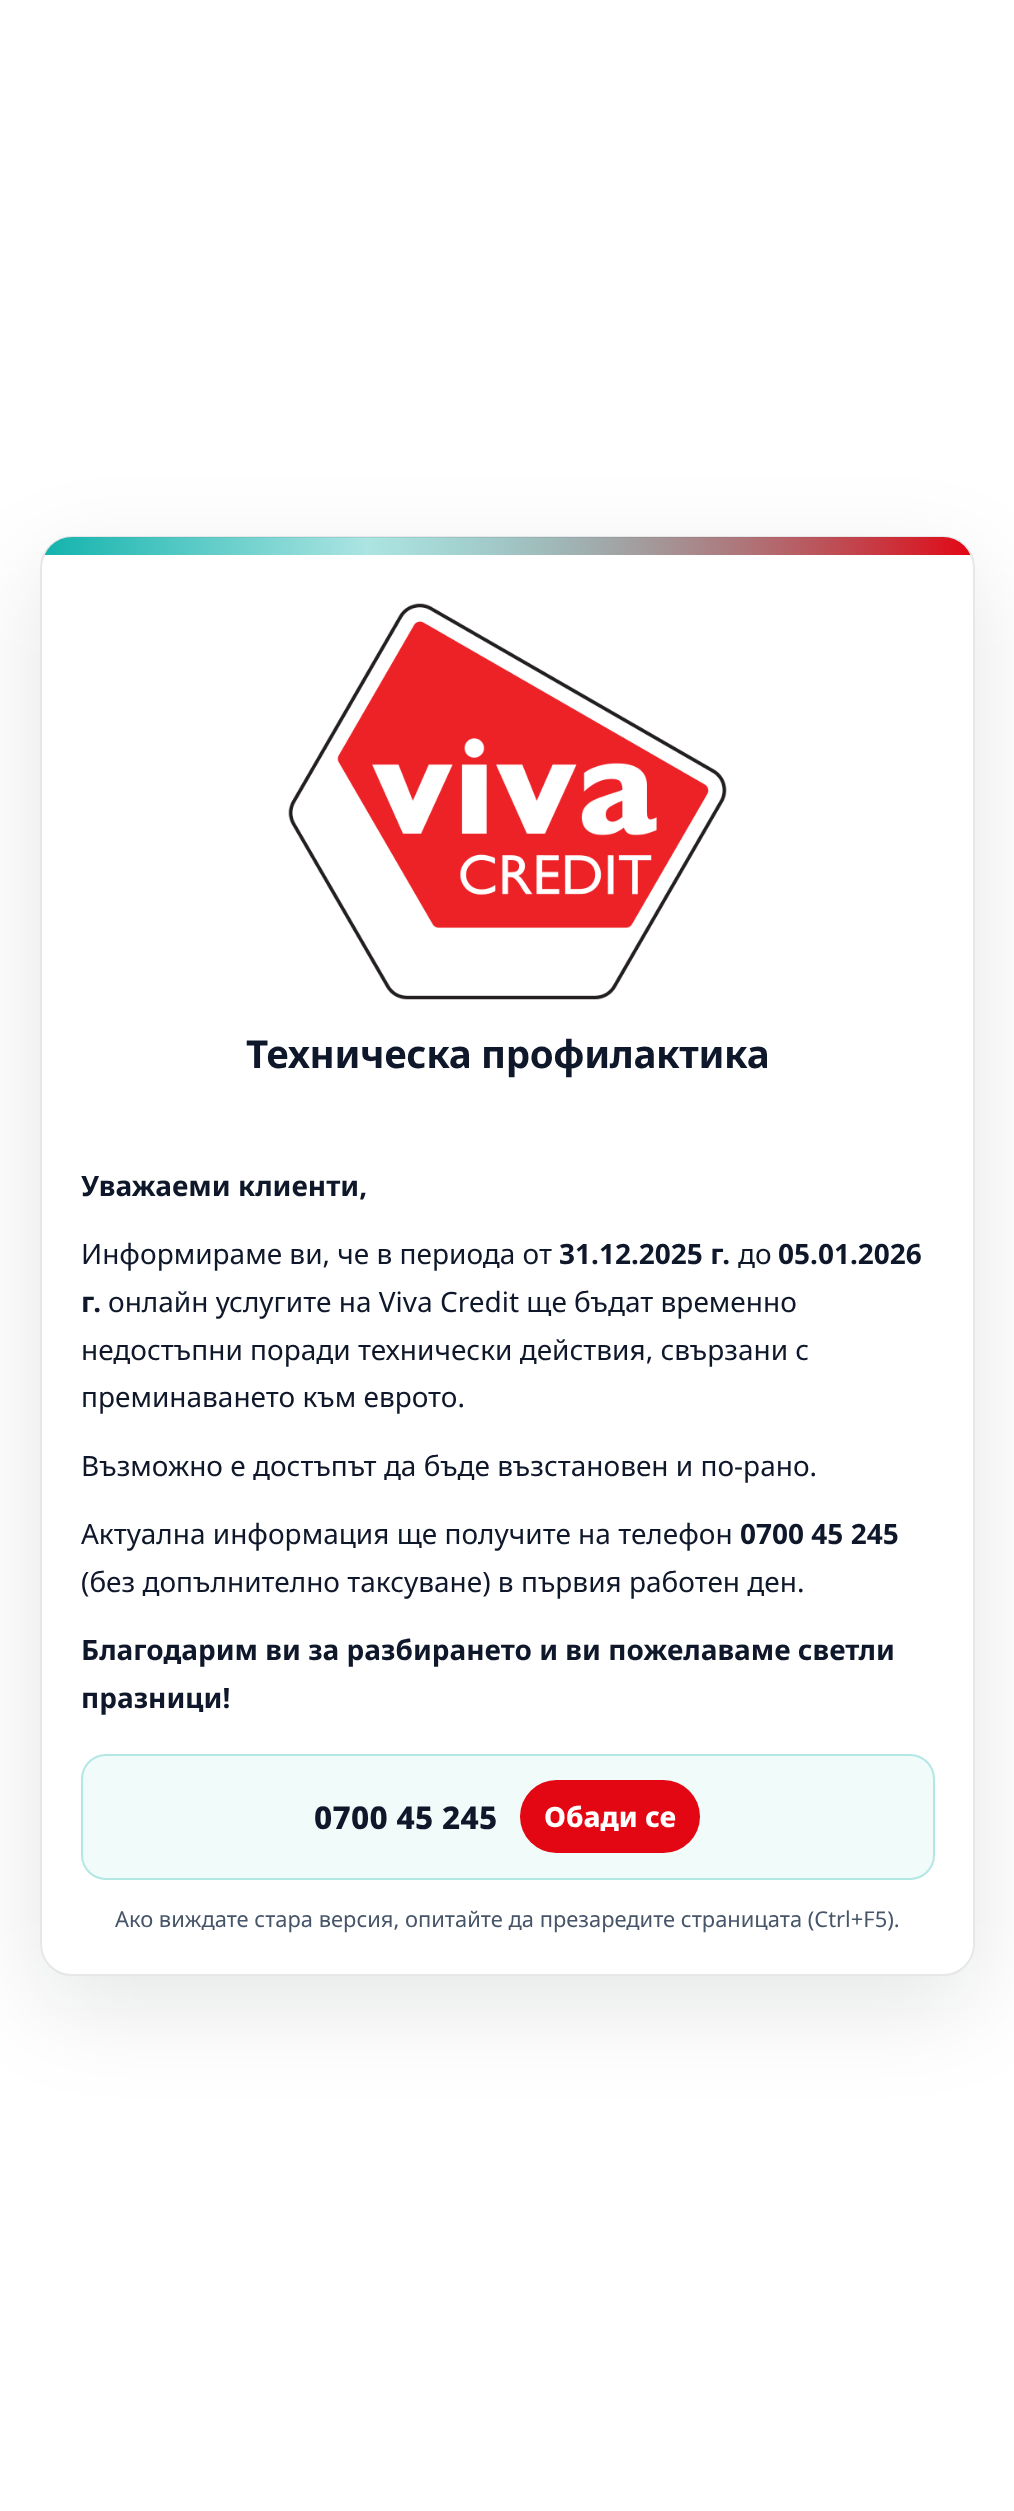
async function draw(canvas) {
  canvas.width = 1014;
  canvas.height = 2511;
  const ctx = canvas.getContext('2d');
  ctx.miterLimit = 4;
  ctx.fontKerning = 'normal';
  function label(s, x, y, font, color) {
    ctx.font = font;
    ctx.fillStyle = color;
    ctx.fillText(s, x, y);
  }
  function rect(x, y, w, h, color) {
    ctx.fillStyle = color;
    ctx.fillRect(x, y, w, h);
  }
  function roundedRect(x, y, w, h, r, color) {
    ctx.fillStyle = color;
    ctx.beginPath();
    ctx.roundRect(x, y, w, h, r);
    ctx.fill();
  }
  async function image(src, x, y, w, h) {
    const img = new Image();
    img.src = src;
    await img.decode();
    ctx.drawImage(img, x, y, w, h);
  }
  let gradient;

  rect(0, 0, 1014, 2511, '#fff');
  ctx.fillStyle = '#0206171a';
  ctx.filter = 'blur(48px)';
  ctx.beginPath();
  ctx.roundRect(40, 567, 935, 1440, 32);
  ctx.fill();
  ctx.filter = 'none';
  roundedRect(40, 536, 935, 1440, 32, '#fff');
  ctx.beginPath();
  ctx.roundRect(41, 537, 933, 1438, 31);
  ctx.strokeStyle = '#0f172a1a';
  ctx.lineWidth = 2;
  ctx.stroke();
  ctx.save();
  ctx.beginPath();
  ctx.roundRect(42, 537, 931, 1437, 30);
  ctx.clip();
  gradient = ctx.createLinearGradient(42, 546, 973, 546);
  gradient.addColorStop(0, '#12b3ad');
  gradient.addColorStop(0.35, '#12b3ad59');
  gradient.addColorStop(1, '#e30613');
  ctx.fillStyle = gradient;
  ctx.fillRect(44, 537, 927, 18);
  ctx.restore();
  await image('assets/img1.png', 288, 603, 439, 397);
  ctx.letterSpacing = '-0.35px';
  label('Техническа профилактика', 246, 1068, 'bold 38.5px Noto Sans', '#0f172a');
  ctx.letterSpacing = '0px';
  label('Уважаеми клиенти,', 81, 1196, 'bold 28px Noto Sans', '#0f172a');
  label('Информираме ви, че в периода от', 81, 1264, '28px Noto Sans', '#0f172a');
  label('31.12.2025 г.', 559, 1264, 'bold 28px Noto Sans', '#0f172a');
  label('до', 738, 1264, '28px Noto Sans', '#0f172a');
  label('05.01.2026', 778, 1264, 'bold 28px Noto Sans', '#0f172a');
  label('г.', 81, 1312, 'bold 28px Noto Sans', '#0f172a');
  label('онлайн услугите на Viva Credit ще бъдат временно', 108, 1312, '28px Noto Sans', '#0f172a');
  label('недостъпни поради технически действия, свързани с', 81, 1360, '28px Noto Sans', '#0f172a');
  label('преминаването към еврото.', 81, 1407, '28px Noto Sans', '#0f172a');
  label('Възможно е достъпът да бъде възстановен и по-рано.', 81, 1476, '28px Noto Sans', '#0f172a');
  label('Актуална информация ще получите на телефон', 81, 1544, '28px Noto Sans', '#0f172a');
  label('0700 45 245', 740, 1544, 'bold 28px Noto Sans', '#0f172a');
  label('(без допълнително таксуване) в първия работен ден.', 81, 1592, '28px Noto Sans', '#0f172a');
  label('Благодарим ви за разбирането и ви пожелаваме светли', 81, 1660, 'bold 28px Noto Sans', '#0f172a');
  label('празници!', 81, 1708, 'bold 28px Noto Sans', '#0f172a');
  roundedRect(81, 1754, 854, 126, 25, '#f1fbfa');
  ctx.beginPath();
  ctx.roundRect(82, 1755, 852, 124, 24);
  ctx.strokeStyle = '#12b3ad47';
  ctx.stroke();
  ctx.letterSpacing = '0.3px';
  label('0700 45 245', 314, 1829, '800 31.5px Noto Sans', '#0f172a');
  roundedRect(520, 1780, 180, 73, 36.5, '#e30613');
  ctx.letterSpacing = '0px';
  label('Обади се', 544, 1827, '800 28px Noto Sans', '#fff');
  label('Ако виждате стара версия, опитайте да презаредите страницата (Ctrl+F5).', 115, 1927, '21.9px Noto Sans', '#475569');
}

draw(document.querySelector('canvas'));
